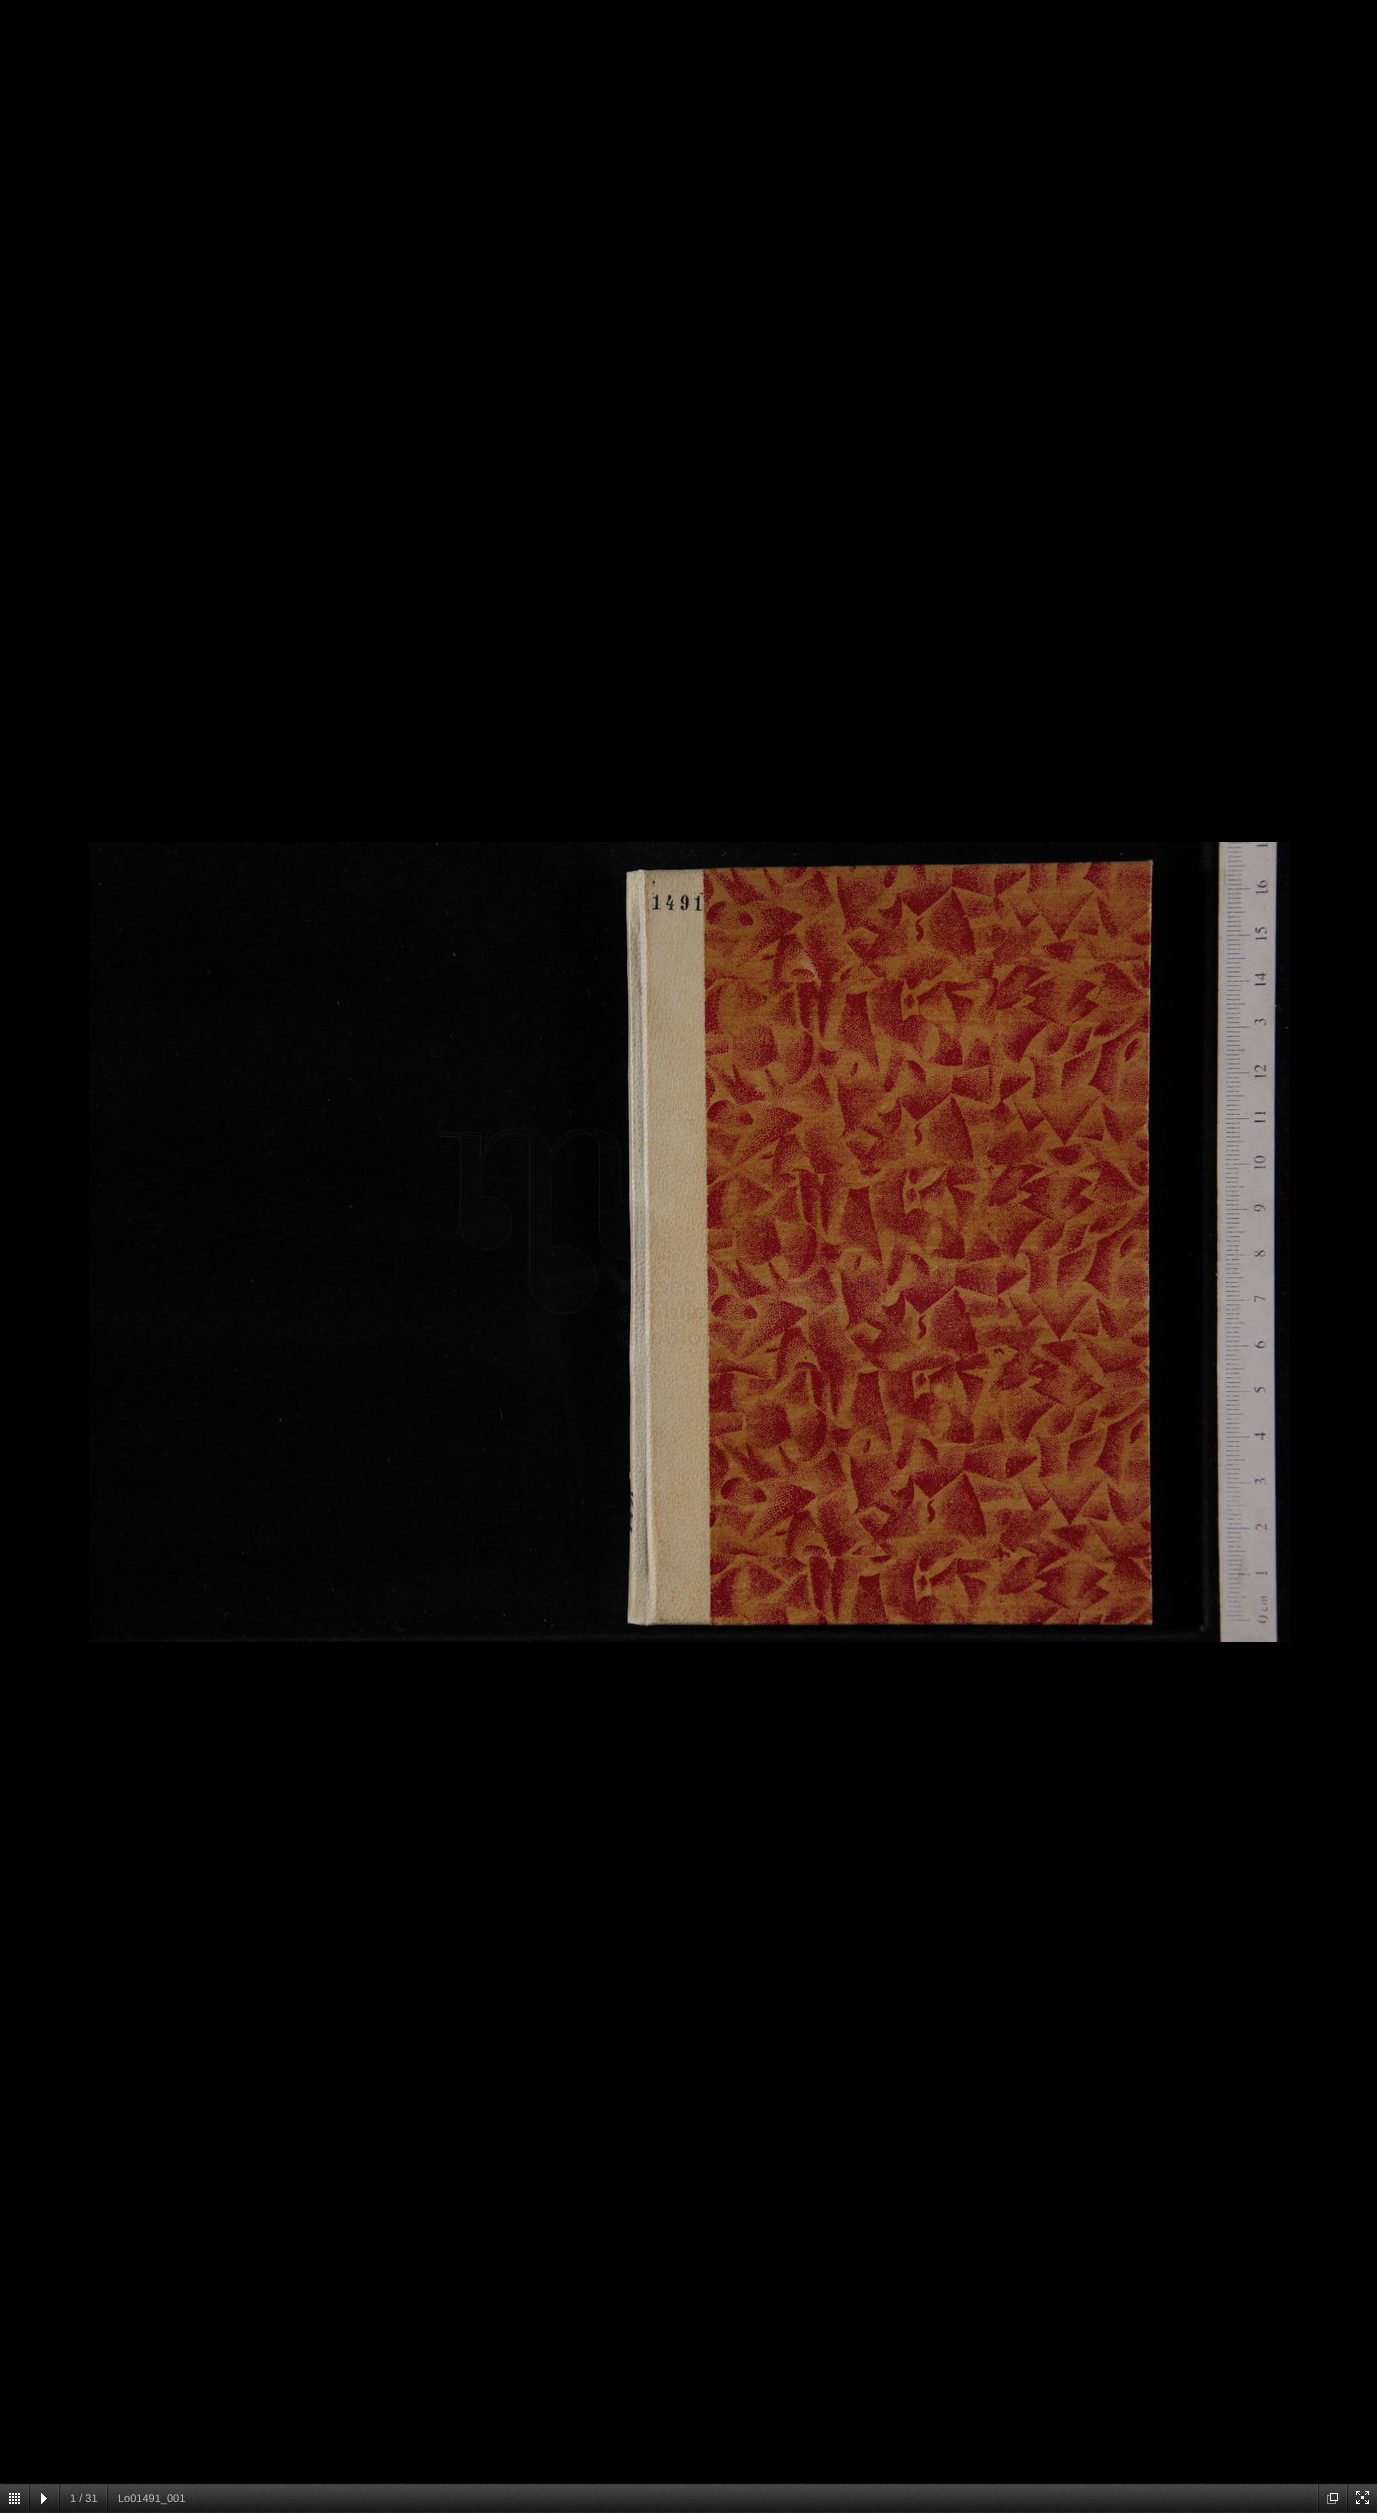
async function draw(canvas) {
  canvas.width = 1377;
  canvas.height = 2513;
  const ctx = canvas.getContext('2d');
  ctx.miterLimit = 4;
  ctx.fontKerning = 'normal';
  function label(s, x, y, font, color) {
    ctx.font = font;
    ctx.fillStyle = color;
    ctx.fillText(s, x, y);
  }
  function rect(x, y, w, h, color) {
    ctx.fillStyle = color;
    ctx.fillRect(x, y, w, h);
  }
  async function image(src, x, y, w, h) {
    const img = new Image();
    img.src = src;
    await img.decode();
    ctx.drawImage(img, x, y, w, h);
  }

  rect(0, 0, 1377, 2513, '#fff');
  rect(0, 0, 1377, 2484, '#000');
  await image('assets/img1.png', 89, 842, 1200, 800);
  await image('assets/img2.png', 0, 2483, 1377, 30);
  await image('assets/img3.png', 9, 2493, 11, 11);
  await image('assets/img4.png', 28, 2484, 2, 29);
  await image('assets/img5.png', 41, 2493, 6, 11);
  await image('assets/img6.png', 58, 2484, 2, 29);
  await image('assets/img7.png', 106, 2484, 2, 29);
  label('1 / 31', 70, 2502, '11px Liberation Sans', '#bbb');
  label('Lo01491_001', 118, 2502, '11px Liberation Sans', '#bbb');
  await image('assets/img8.png', 1317, 2484, 2, 29);
  await image('assets/img9.png', 1327, 2493, 11, 11);
  await image('assets/img10.png', 1346, 2484, 2, 29);
  await image('assets/img11.png', 1356, 2491, 13, 13);
}

draw(document.querySelector('canvas'));
